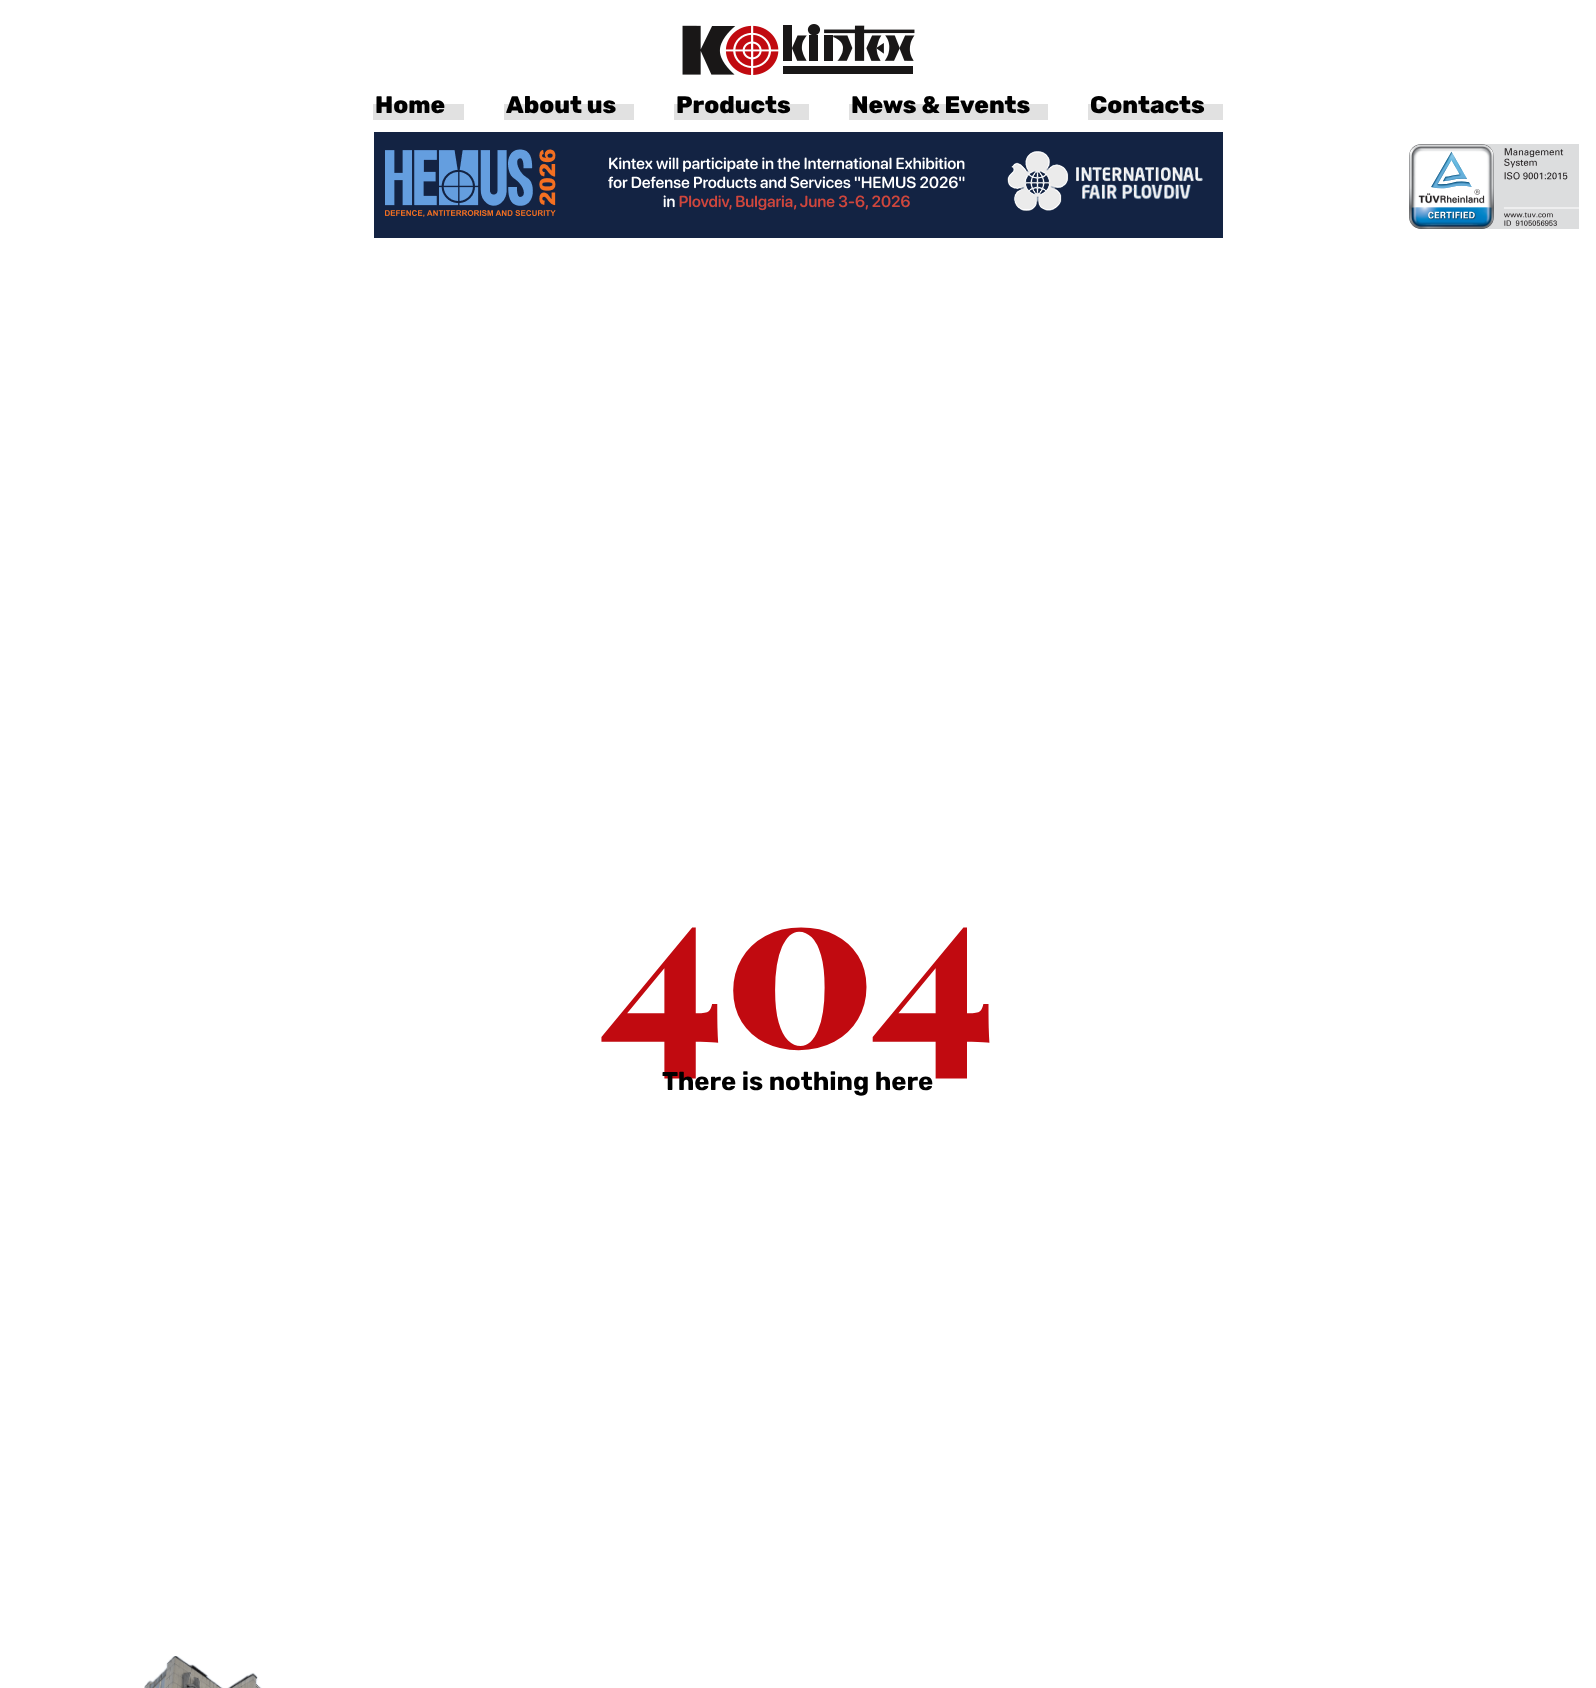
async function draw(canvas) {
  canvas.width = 1596;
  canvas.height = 1688;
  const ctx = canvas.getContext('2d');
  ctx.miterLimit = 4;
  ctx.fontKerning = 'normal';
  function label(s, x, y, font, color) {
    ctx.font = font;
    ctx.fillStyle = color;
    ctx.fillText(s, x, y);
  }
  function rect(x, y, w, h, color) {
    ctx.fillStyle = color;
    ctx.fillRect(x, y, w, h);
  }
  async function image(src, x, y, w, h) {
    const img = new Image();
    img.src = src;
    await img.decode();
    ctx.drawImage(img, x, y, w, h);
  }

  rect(0, 0, 1596, 1688, '#fff');
  await image('assets/img1.png', 682, 24, 233, 51);
  rect(373, 104, 91, 16, '#e1e1e1');
  label('Home', 375, 113, '800 24px Rubik', '#000');
  rect(504, 104, 130, 16, '#e1e1e1');
  label('About us', 506, 113, '800 24px Rubik', '#000');
  rect(674, 104, 135, 16, '#e1e1e1');
  label('Products', 676, 113, '800 24px Rubik', '#000');
  rect(849, 104, 199, 16, '#e1e1e1');
  label('News & Events', 851, 113, '800 24px Rubik', '#000');
  rect(1088, 104, 135, 16, '#e1e1e1');
  label('Contacts', 1090, 113, '800 24px Rubik', '#000');
  await image('assets/img2.png', 1409, 144, 170, 85);
  await image('assets/img3.png', 374, 132, 849, 106);
  label('404', 601, 1047, '900 224px Playfair Display', '#c10a10');
  label('There is nothing here', 662, 1090, 'bold 25.6px Rubik', '#000');
  await image('assets/img4.png', 144, 1656, 118, 32);
}

draw(document.querySelector('canvas'));
